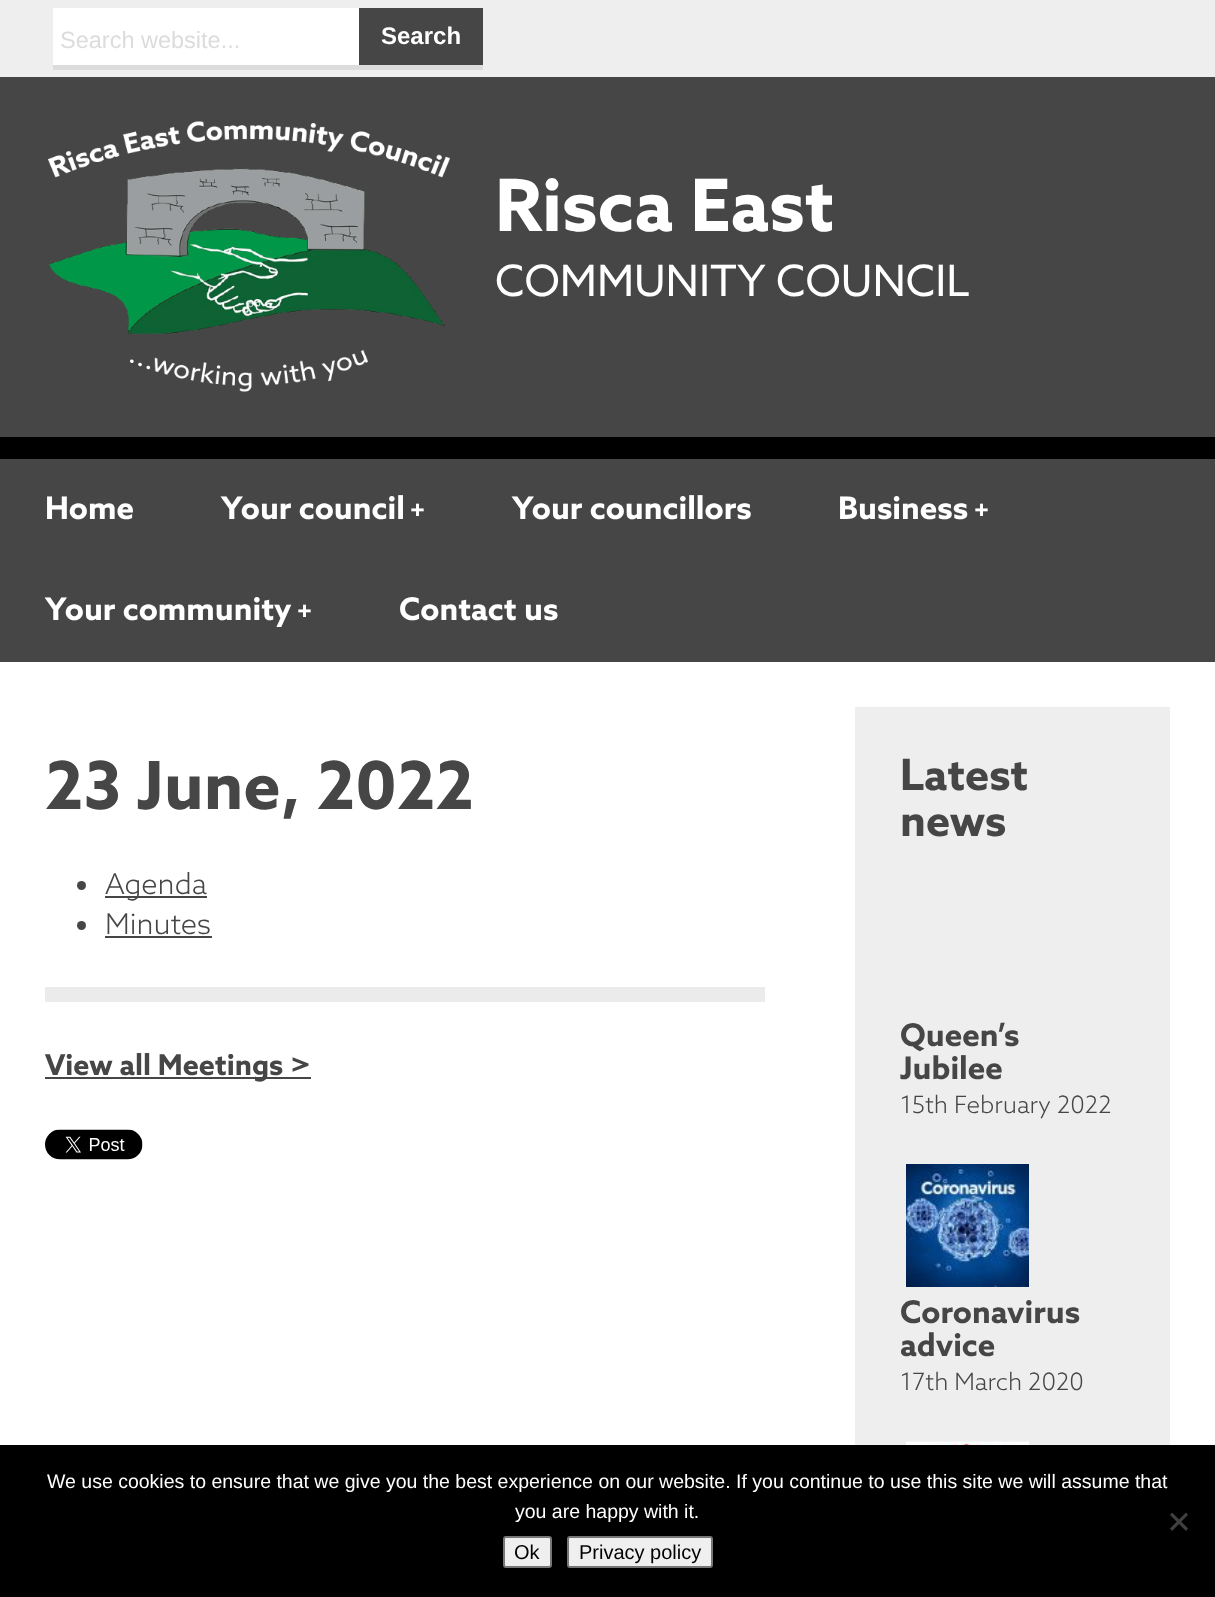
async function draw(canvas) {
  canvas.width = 1215;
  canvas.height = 1597;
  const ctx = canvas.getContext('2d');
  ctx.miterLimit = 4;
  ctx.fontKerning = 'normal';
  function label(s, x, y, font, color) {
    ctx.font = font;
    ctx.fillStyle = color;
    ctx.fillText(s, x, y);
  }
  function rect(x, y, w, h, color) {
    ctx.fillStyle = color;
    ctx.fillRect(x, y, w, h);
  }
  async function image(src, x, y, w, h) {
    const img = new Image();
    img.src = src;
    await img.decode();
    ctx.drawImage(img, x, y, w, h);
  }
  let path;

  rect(0, 0, 1215, 1597, '#fff');
  rect(0, 0, 1215, 77, '#eee');
  rect(53, 8, 306, 57, '#fff');
  rect(53, 65, 430, 5, '#dcdcdc');
  label('Search website...', 60, 48, '23.5px Liberation Sans', '#dcdcdc');
  rect(359, 8, 124, 57, '#464646');
  label('Search', 381, 44, 'bold 24px Liberation Sans', '#fff');
  rect(0, 77, 1215, 360, '#464646');
  await image('assets/img1.png', 48, 121, 402, 271);
  label('Risca East', 495, 231, 'bold 72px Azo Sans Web', '#fff');
  label('COMMUNITY COUNCIL', 495, 296, '43.25px Azo Sans Web', '#fff');
  rect(0, 437, 1215, 22, '#000');
  rect(0, 459, 1215, 203, '#464646');
  label('Home', 45, 519, 'bold 31.25px Azo Sans Web', '#fff');
  label('Your council', 221, 519, 'bold 31.25px Azo Sans Web', '#fff');
  label('+', 410, 519, 'bold 25px Azo Sans Web', '#fff');
  label('Your councillors', 512, 519, 'bold 31.25px Azo Sans Web', '#fff');
  label('Business', 838, 519, 'bold 31.25px Azo Sans Web', '#fff');
  label('+', 974, 519, 'bold 25px Azo Sans Web', '#fff');
  label('Your community', 45, 620, 'bold 31.25px Azo Sans Web', '#fff');
  label('+', 297, 620, 'bold 25px Azo Sans Web', '#fff');
  label('Contact us', 399, 620, 'bold 31.25px Azo Sans Web', '#fff');
  label('23 June, 2022', 45, 809, 'bold 66.25px Azo Sans Web', '#464646');
  ctx.beginPath();
  ctx.arc(81.5, 885.5, 4.5, 0, 2 * Math.PI);
  ctx.fill();
  rect(105, 896, 102, 2, '#464646');
  label('Agenda', 105, 894, '300 28.75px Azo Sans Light', '#464646');
  ctx.beginPath();
  ctx.arc(81.5, 925.5, 4.5, 0, 2 * Math.PI);
  ctx.fill();
  label('Minutes', 105, 934, '300 28.75px Azo Sans Light', '#464646');
  rect(105, 936, 107, 2, '#464646');
  rect(45, 987, 720, 15, '#ebebeb');
  rect(45, 1077, 266, 2, '#464646');
  label('View all Meetings >', 45, 1075, 'bold 28.75px Azo Sans Web', '#464646');
  await image('assets/img2.png', 45, 1129, 98, 31);
  rect(855, 707, 315, 738, '#eee');
  label('Latest', 900, 790, 'bold 43.25px Azo Sans Web', '#464646');
  label('news', 900, 836, 'bold 43.25px Azo Sans Web', '#464646');
  label('Queen’s', 900, 1046, 'bold 31.25px Azo Sans Web', '#464646');
  label('Jubilee', 900, 1079, 'bold 31.25px Azo Sans Web', '#464646');
  label('15th February 2022', 900, 1113, '300 24px Azo Sans Light', '#464646');
  await image('assets/img3.png', 906, 1164, 123, 123);
  label('Coronavirus', 900, 1323, 'bold 31.25px Azo Sans Web', '#464646');
  label('advice', 900, 1356, 'bold 31.25px Azo Sans Web', '#464646');
  label('17th March 2020', 900, 1390, '300 24px Azo Sans Light', '#464646');
  await image('assets/img4.png', 906, 1441, 123, 4);
  rect(0, 1445, 1215, 152, '#000');
  label('We use cookies to ensure that we give you the best experience on our website. If you continue to use this site we will assume that', 47, 1488, '19.5px Liberation Sans', '#fff');
  label('you are happy with it.', 515, 1518, '19.5px Liberation Sans', '#fff');
  ctx.fillStyle = '#404040';
  path = new Path2D('M1186 1512.5L1188 1515L1172 1531L1170 1528.5Z');
  ctx.fill(path);
  path = new Path2D('M1170 1515L1172 1512.5L1188 1528.5L1186 1531Z');
  ctx.fill(path);
  ctx.fillStyle = '#efefef';
  ctx.beginPath();
  ctx.roundRect(504, 1537, 47, 30, 2);
  ctx.fill();
  ctx.strokeStyle = '#767676';
  ctx.lineWidth = 2;
  ctx.stroke();
  label('Ok', 514, 1559, '20px Liberation Sans', '#000');
  ctx.fillStyle = '#efefef';
  ctx.beginPath();
  ctx.roundRect(568, 1537, 144, 30, 2);
  ctx.fill();
  ctx.stroke();
  label('Privacy policy', 579, 1559, '20px Liberation Sans', '#000');
}

draw(document.querySelector('canvas'));
